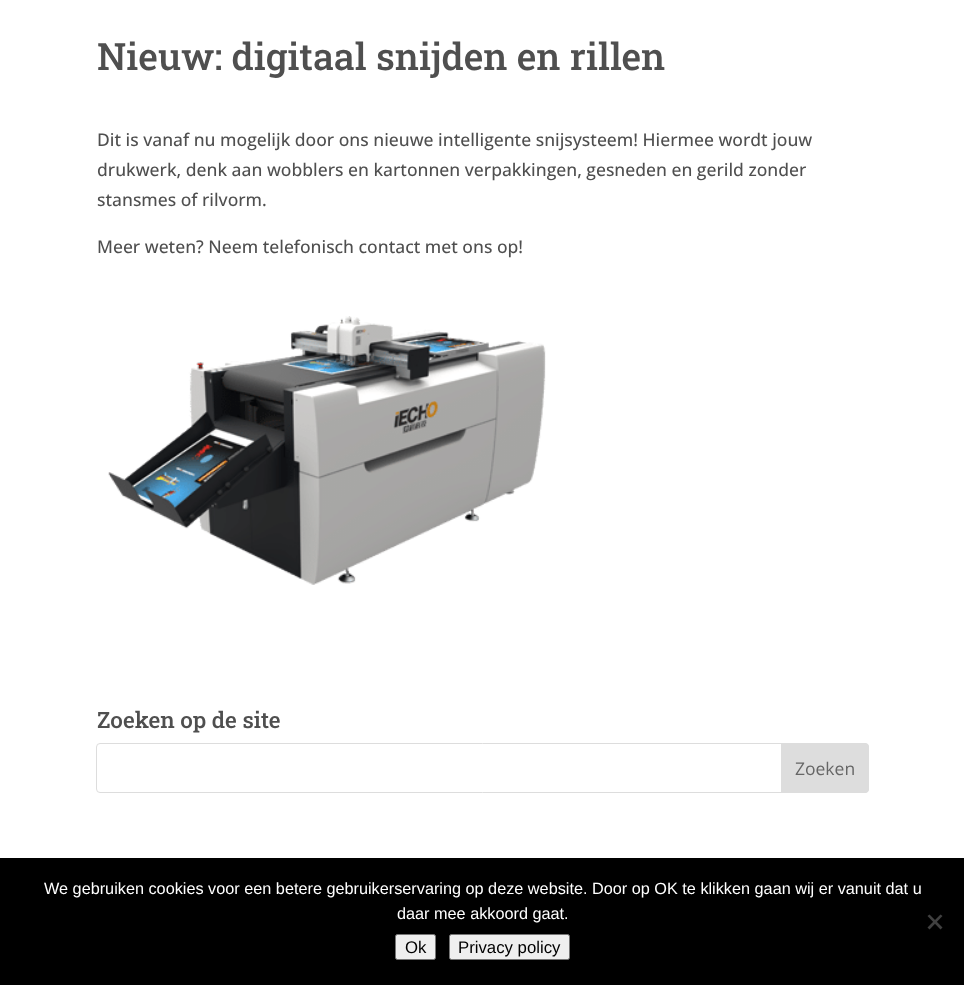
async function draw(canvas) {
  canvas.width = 964;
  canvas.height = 985;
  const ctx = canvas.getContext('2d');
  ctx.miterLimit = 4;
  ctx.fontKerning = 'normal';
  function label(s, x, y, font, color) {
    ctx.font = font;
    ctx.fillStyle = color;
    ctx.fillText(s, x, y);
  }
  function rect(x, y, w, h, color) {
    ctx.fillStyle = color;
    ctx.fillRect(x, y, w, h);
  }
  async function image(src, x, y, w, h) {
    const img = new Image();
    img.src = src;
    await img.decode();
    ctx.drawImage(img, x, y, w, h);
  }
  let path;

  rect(0, 0, 964, 985, '#fff');
  label('Nieuw: digitaal snijden en rillen', 97, 70, '500 37.5px Roboto Slab', '#4f4f4f');
  label('Dit is vanaf nu mogelijk door ons nieuwe intelligente snijsysteem! Hiermee wordt jouw', 97, 146, '500 17.5px Open Sans', '#4f4f4f');
  label('drukwerk, denk aan wobblers en kartonnen verpakkingen, gesneden en gerild zonder', 97, 176, '500 17.5px Open Sans', '#4f4f4f');
  label('stansmes of rilvorm.', 97, 206, '500 17.5px Open Sans', '#4f4f4f');
  label('Meer weten? Neem telefonisch contact met ons op!', 97, 253, '500 17.5px Open Sans', '#4f4f4f');
  await image('assets/img1.png', 108, 316, 438, 269);
  label('Zoeken op de site', 97, 728, '500 22.5px Roboto Slab', '#4f4f4f');
  ctx.beginPath();
  ctx.roundRect(96.5, 743.5, 772, 49, 3.5);
  ctx.strokeStyle = '#ddd';
  ctx.stroke();
  ctx.fillStyle = '#ddd';
  ctx.beginPath();
  ctx.roundRect(781.5, 743.5, 87, 49, [0, 3.5, 3.5, 0]);
  ctx.fill();
  ctx.stroke();
  label('Zoeken', 795, 775, '17.5px Open Sans', '#666');
  rect(0, 858, 964, 127, '#000');
  label('We gebruiken cookies voor een betere gebruikerservaring op deze website. Door op OK te klikken gaan wij er vanuit dat u', 44, 894, '16.25px Liberation Sans', '#fff');
  label('daar mee akkoord gaat.', 397, 919, '16.25px Liberation Sans', '#fff');
  ctx.fillStyle = '#404040';
  path = new Path2D('M940.5 914.5L942.5 916L929.5 929.5L927.5 927.5Z');
  ctx.fill(path);
  path = new Path2D('M927.5 916L929.5 914.5L942.5 927.5L940.5 929.5Z');
  ctx.fill(path);
  ctx.fillStyle = '#efefef';
  ctx.beginPath();
  ctx.roundRect(395.5, 934.5, 40, 25, 2);
  ctx.fill();
  ctx.strokeStyle = '#767676';
  ctx.stroke();
  label('Ok', 405, 953, '16.75px Liberation Sans', '#000');
  ctx.fillStyle = '#efefef';
  ctx.beginPath();
  ctx.roundRect(449.5, 934.5, 120, 25, 2);
  ctx.fill();
  ctx.stroke();
  label('Privacy policy', 458, 953, '16.75px Liberation Sans', '#000');
}

draw(document.querySelector('canvas'));
